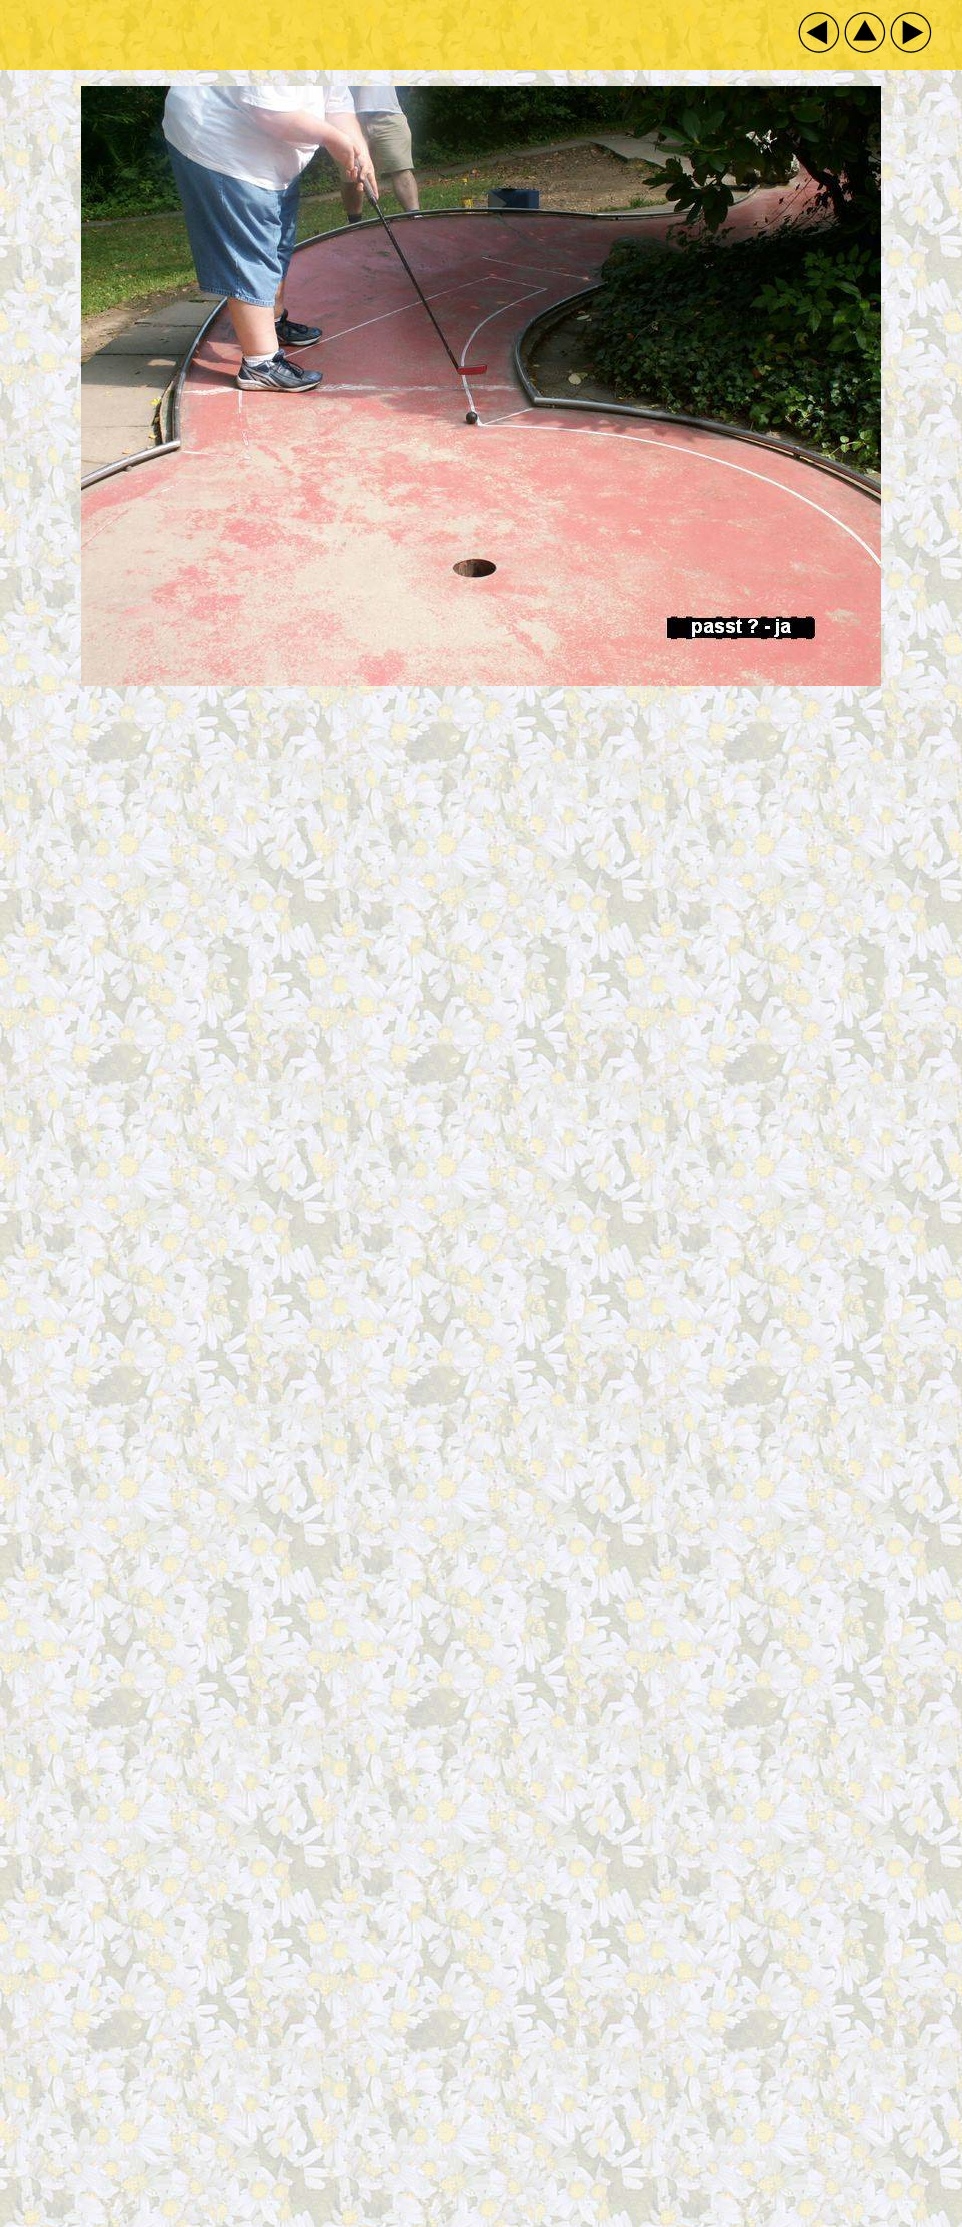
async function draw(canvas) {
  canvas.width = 962;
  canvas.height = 2227;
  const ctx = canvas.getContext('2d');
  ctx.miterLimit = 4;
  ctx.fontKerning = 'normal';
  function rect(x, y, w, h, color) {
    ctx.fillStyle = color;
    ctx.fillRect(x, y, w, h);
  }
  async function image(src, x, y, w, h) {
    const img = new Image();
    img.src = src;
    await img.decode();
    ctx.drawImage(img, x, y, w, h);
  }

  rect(0, 0, 962, 2227, '#fff');
  await image('assets/img1.png', 0, 70, 962, 2157);
  await image('assets/img2.png', 0, 0, 768, 70);
  await image('assets/img3.png', 768, 0, 194, 70);
  await image('assets/img4.png', 798, 12, 42, 42);
  await image('assets/img5.png', 844, 12, 42, 42);
  await image('assets/img6.png', 890, 12, 42, 42);
  await image('assets/img7.png', 81, 86, 800, 600);
}

draw(document.querySelector('canvas'));
